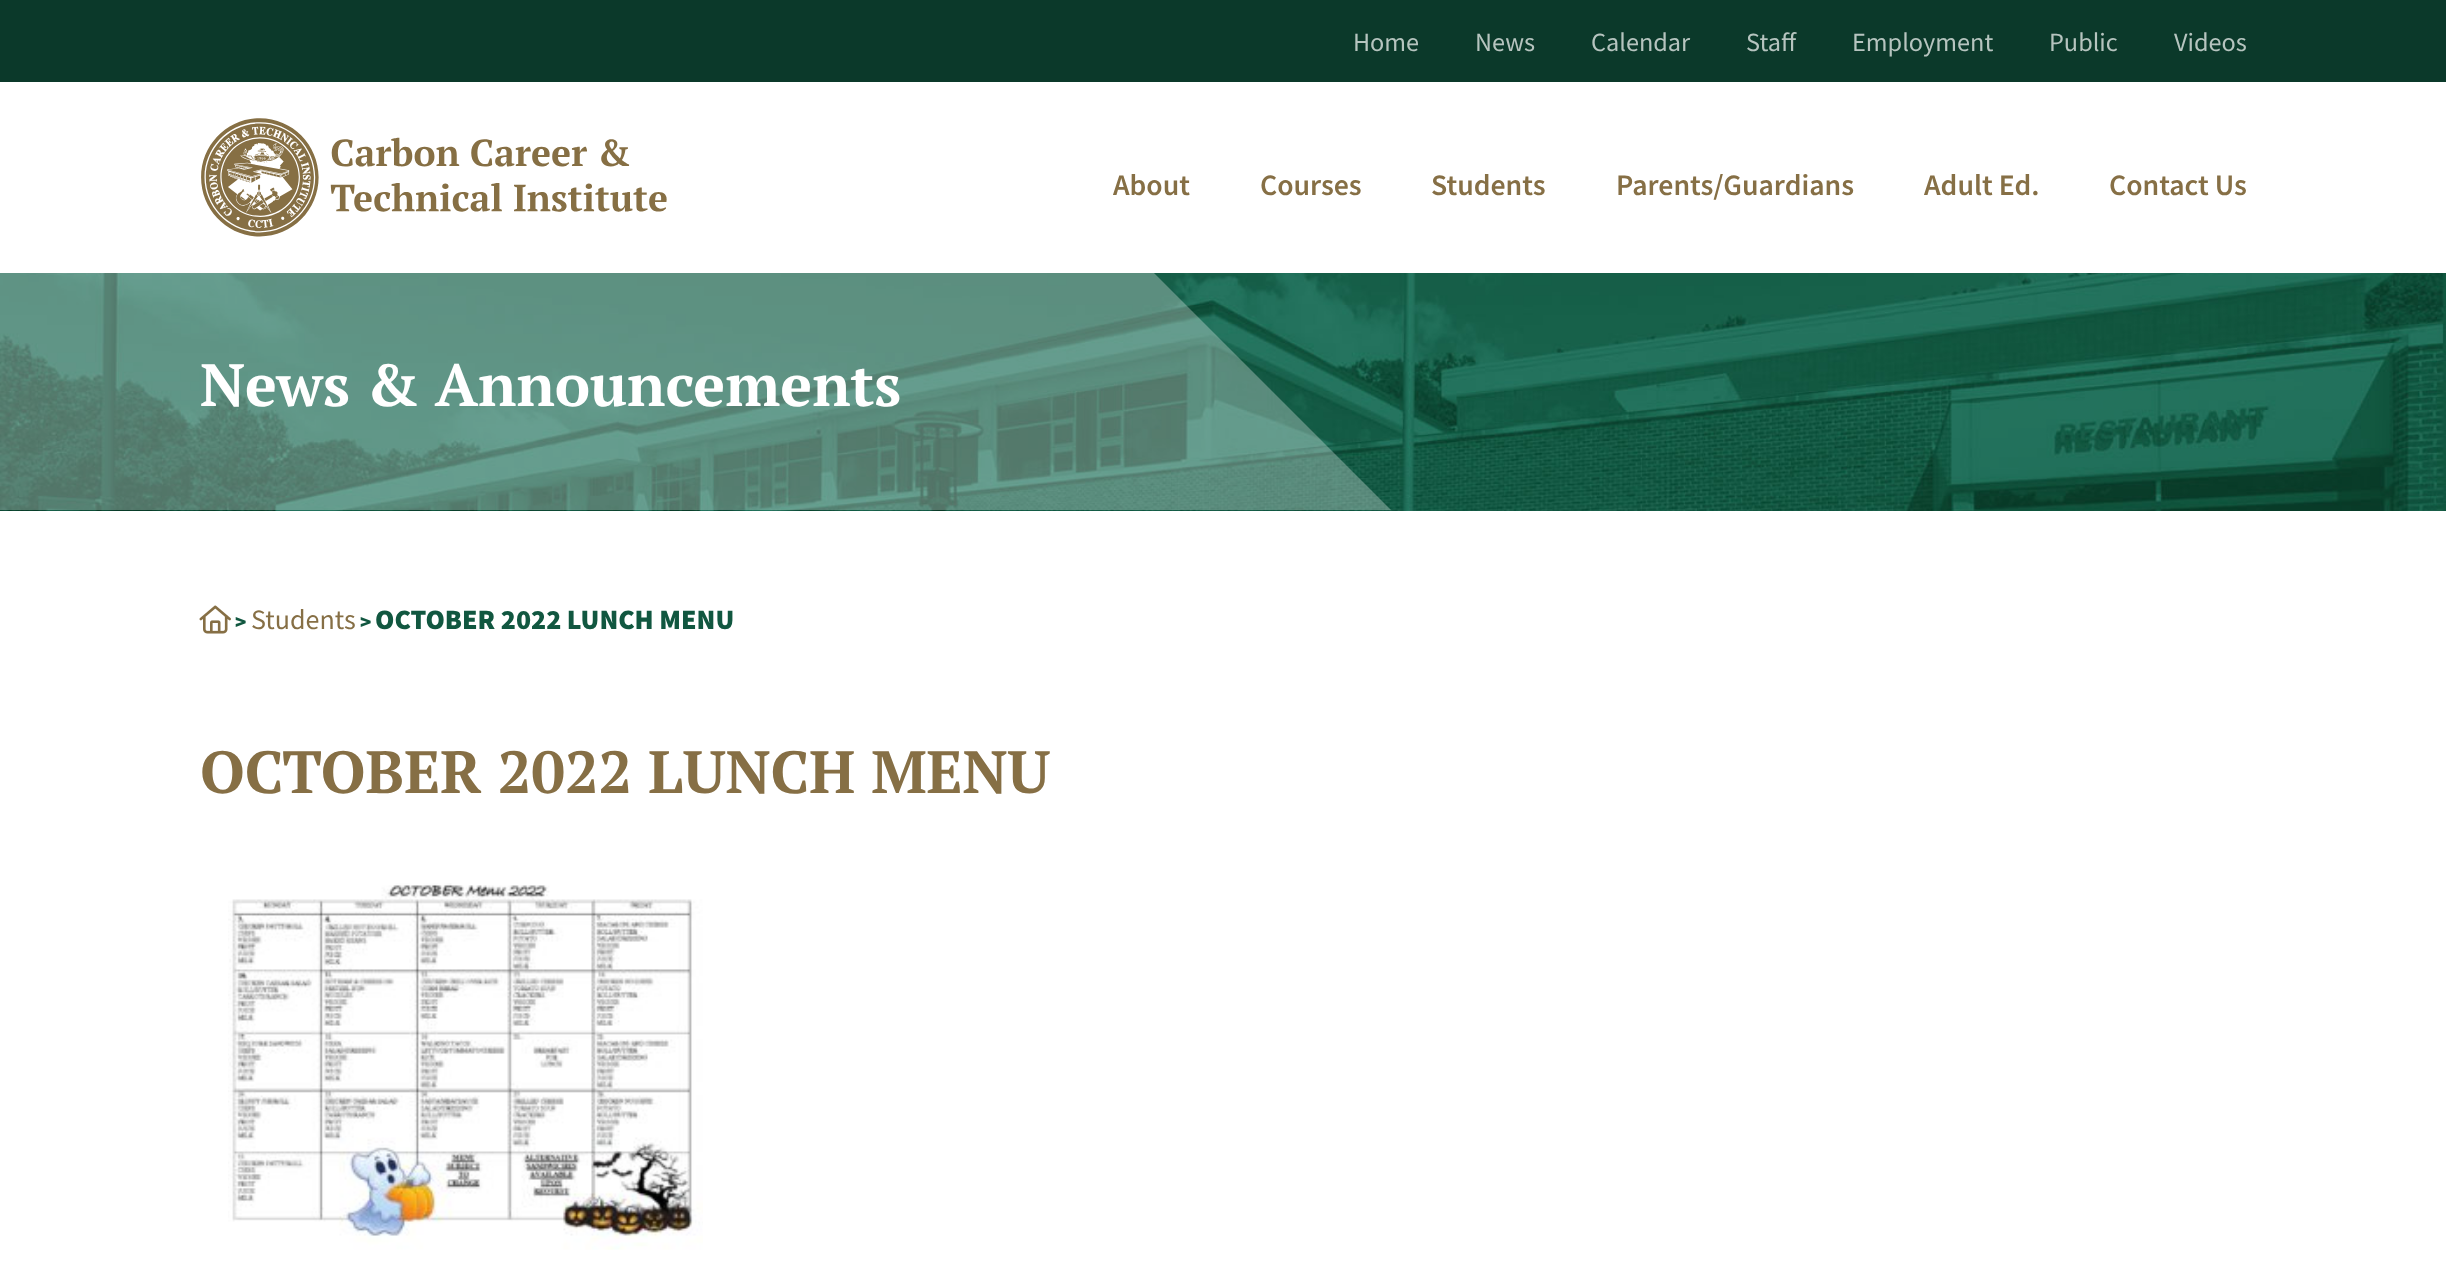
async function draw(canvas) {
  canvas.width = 2446;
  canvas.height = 1262;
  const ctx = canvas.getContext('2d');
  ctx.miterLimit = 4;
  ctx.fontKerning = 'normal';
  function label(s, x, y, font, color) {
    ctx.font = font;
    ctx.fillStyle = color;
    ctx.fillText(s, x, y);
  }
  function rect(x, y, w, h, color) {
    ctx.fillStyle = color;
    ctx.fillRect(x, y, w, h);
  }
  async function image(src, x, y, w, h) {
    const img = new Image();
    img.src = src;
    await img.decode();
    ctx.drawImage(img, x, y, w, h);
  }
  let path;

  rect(0, 0, 2446, 1262, '#fff');
  rect(0, 0, 2446, 82, '#0b392a');
  label('Home', 1353, 51, '26.25px Source Sans Pro', '#b6c4bf');
  label('News', 1475, 51, '26.25px Source Sans Pro', '#b6c4bf');
  label('Calendar', 1591, 51, '26.25px Source Sans Pro', '#b6c4bf');
  label('Staff', 1746, 51, '26.25px Source Sans Pro', '#b6c4bf');
  label('Employment', 1852, 51, '26.25px Source Sans Pro', '#b6c4bf');
  label('Public', 2049, 51, '26.25px Source Sans Pro', '#b6c4bf');
  label('Videos', 2174, 51, '26.25px Source Sans Pro', '#b6c4bf');
  await image('assets/img1.png', 201, 118, 466, 119);
  label('About', 1113, 195, '600 29.75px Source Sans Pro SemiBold', '#866f45');
  label('Courses', 1260, 195, '600 29.75px Source Sans Pro SemiBold', '#866f45');
  label('Students', 1431, 195, '600 29.75px Source Sans Pro SemiBold', '#866f45');
  label('Parents/Guardians', 1616, 195, '600 29.75px Source Sans Pro SemiBold', '#866f45');
  label('Adult Ed.', 1924, 195, '600 29.75px Source Sans Pro SemiBold', '#866f45');
  label('Contact Us', 2109, 195, '600 29.75px Source Sans Pro SemiBold', '#866f45');
  await image('assets/img2.png', 0, 273, 2446, 238);
  ctx.fillStyle = '#ffffff4d';
  path = new Path2D('M-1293 273H1154L1391 510H-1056Z');
  ctx.fill(path);
  label('News & Announcements', 200, 406, 'bold 59.5px PT Serif', '#fff');
  await image('assets/img3.png', 199, 605, 32, 29);
  label('>', 235, 629, '900 21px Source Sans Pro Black', '#115740');
  label('Students', 251, 629, '28px Source Sans Pro', '#866f45');
  label('>', 360, 629, '900 21px Source Sans Pro Black', '#115740');
  label('OCTOBER 2022 LUNCH MENU', 375, 629, '900 28px Source Sans Pro Black', '#115740');
  label('OCTOBER 2022 LUNCH MENU', 200, 793, 'bold 59.5px PT Serif', '#866f45');
  await image('assets/img4.png', 228, 883, 475, 367);
}

draw(document.querySelector('canvas'));
